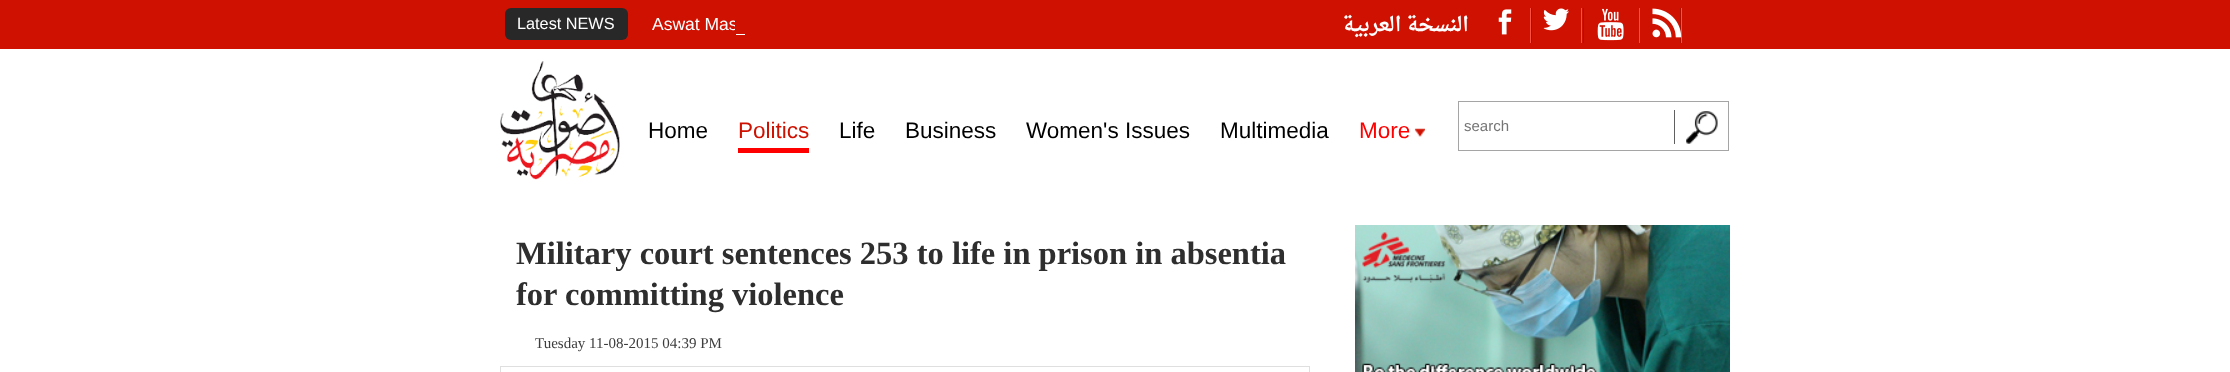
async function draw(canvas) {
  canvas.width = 2230;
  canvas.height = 372;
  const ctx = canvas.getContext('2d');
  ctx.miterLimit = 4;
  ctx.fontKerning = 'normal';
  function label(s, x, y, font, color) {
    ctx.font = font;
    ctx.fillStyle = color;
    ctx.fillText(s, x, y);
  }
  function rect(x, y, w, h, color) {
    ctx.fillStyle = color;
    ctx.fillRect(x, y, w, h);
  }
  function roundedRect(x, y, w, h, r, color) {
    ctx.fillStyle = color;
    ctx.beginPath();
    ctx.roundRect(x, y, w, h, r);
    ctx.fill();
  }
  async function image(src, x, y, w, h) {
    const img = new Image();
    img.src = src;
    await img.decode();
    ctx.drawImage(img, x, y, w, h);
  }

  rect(0, 0, 2230, 372, '#fff');
  rect(0, 0, 2230, 49, '#ce1100');
  roundedRect(505, 8, 123, 32, 6, '#282828');
  label('Latest NEWS', 517, 29, '16.25px Liberation Sans', '#fff');
  label('Aswat Mas', 652, 30, '17.5px Liberation Sans', '#fff');
  rect(735, 20, 3, 10, '#ce1100');
  rect(736, 34, 9, 1, '#fff');
  ctx.direction = 'rtl';
  label('النسخة العربية', 1469, 31, 'bold 20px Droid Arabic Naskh', '#fff');
  await image('assets/img1.png', 1498, 9, 14, 26);
  rect(1531, 8, 1, 35, '#ad1002');
  rect(1530, 8, 1, 35, '#fa5041');
  await image('assets/img2.png', 1543, 8, 26, 23);
  rect(1583, 8, 1, 35, '#ad1002');
  rect(1581, 8, 1, 35, '#fa5041');
  await image('assets/img3.png', 1597, 8, 27, 33);
  rect(1680, 8, 1, 35, '#ad1002');
  rect(1681, 8, 1, 35, '#fa5041');
  rect(1639, 8, 1, 35, '#fa5041');
  await image('assets/img4.png', 1652, 8, 30, 30);
  await image('assets/img5.png', 500, 61, 120, 119);
  ctx.direction = 'ltr';
  label('Home', 648, 138, '22.5px Liberation Sans', '#000');
  label('Politics', 738, 138, '22.5px Liberation Sans', '#ce1100');
  rect(738, 148, 71, 5, '#f00');
  label('Life', 839, 138, '22.5px Liberation Sans', '#000');
  label('Business', 905, 138, '22.5px Liberation Sans', '#000');
  label('Women\'s Issues', 1026, 138, '22.5px Liberation Sans', '#000');
  label('Multimedia', 1220, 138, '22.5px Liberation Sans', '#000');
  await image('assets/img6.png', 1414, 128, 11, 9);
  label('More', 1359, 138, '22.5px Liberation Sans', '#f00');
  ctx.strokeStyle = '#a6a5a5';
  ctx.strokeRect(1458.5, 101.5, 270, 49);
  label('search', 1464, 131, '15px Liberation Sans', '#757575');
  await image('assets/img7.png', 1686, 111, 32, 33);
  rect(1674, 110, 1, 34, '#606060');
  label('Military court sentences 253 to life in prison in absentia', 516, 264, 'bold 32.5px Liberation Serif', '#2e2e2e');
  label('for committing violence', 516, 305, 'bold 32.5px Liberation Serif', '#2e2e2e');
  label('Tuesday 11-08-2015 04:39 PM', 535, 348, '15px Liberation Serif', '#3d3d3d');
  ctx.strokeStyle = '#dfdfdf';
  ctx.strokeRect(500.5, 366.5, 809, 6);
  await image('assets/img8.png', 1355, 225, 375, 147);
}

draw(document.querySelector('canvas'));
